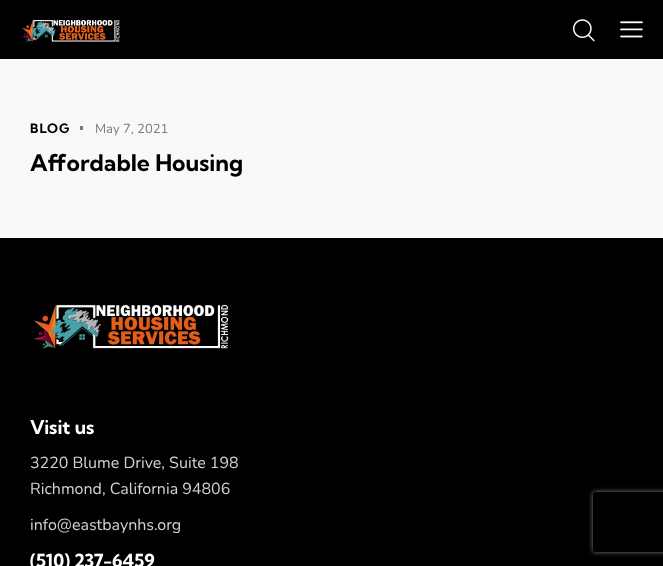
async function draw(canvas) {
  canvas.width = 663;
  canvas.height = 566;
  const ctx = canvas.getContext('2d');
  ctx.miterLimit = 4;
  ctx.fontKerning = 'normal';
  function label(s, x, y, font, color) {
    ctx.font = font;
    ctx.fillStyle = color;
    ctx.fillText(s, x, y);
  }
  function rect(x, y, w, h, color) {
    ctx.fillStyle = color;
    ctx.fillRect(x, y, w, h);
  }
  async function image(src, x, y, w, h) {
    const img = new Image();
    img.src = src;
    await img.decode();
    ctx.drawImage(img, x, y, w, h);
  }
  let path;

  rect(0, 0, 663, 566, '#f9f9f9');
  rect(0, 0, 663, 59, '#000');
  await image('assets/img1.png', 22, 19, 98, 23);
  await image('assets/img2.png', 573, 19, 22, 23);
  await image('assets/img3.png', 620, 21, 23, 17);
  ctx.letterSpacing = '1px';
  label('BLOG', 30, 133, 'bold 13px Kumbh Sans', '#000');
  rect(80, 126, 3, 4, '#797c7f');
  ctx.letterSpacing = '0px';
  label('May 7, 2021', 95, 133, '13px Nunito', '#797c7f');
  label('Affordable Housing', 30, 171, 'bold 23px Kumbh Sans', '#000');
  rect(0, 238, 663, 328, '#000');
  await image('assets/img4.png', 34, 304, 195, 45);
  label('Visit us', 30, 434, 'bold 19px Kumbh Sans', '#fff');
  label('3220 Blume Drive, Suite 198', 30, 468, '16px Nunito', '#d2d3d5');
  label('Richmond, California 94806', 30, 494, '16px Nunito', '#d2d3d5');
  label('info@eastbaynhs.org', 30, 530, '16px Nunito', '#d2d3d5');
  label('(510) 237-6459', 30, 567, 'bold 18px Kumbh Sans', '#fff');
  ctx.save();
  path = new Path2D('M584 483H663V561H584ZM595 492H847C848 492 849 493 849 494V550C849 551 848 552 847 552H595C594 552 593 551 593 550V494C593 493 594 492 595 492Z');
  ctx.clip(path, 'evenodd');
  ctx.fillStyle = '#808080';
  ctx.filter = 'blur(2.5px)';
  ctx.beginPath();
  ctx.roundRect(593, 492, 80, 60, 2);
  ctx.fill();
  ctx.filter = 'none';
  ctx.restore();
}

draw(document.querySelector('canvas'));
